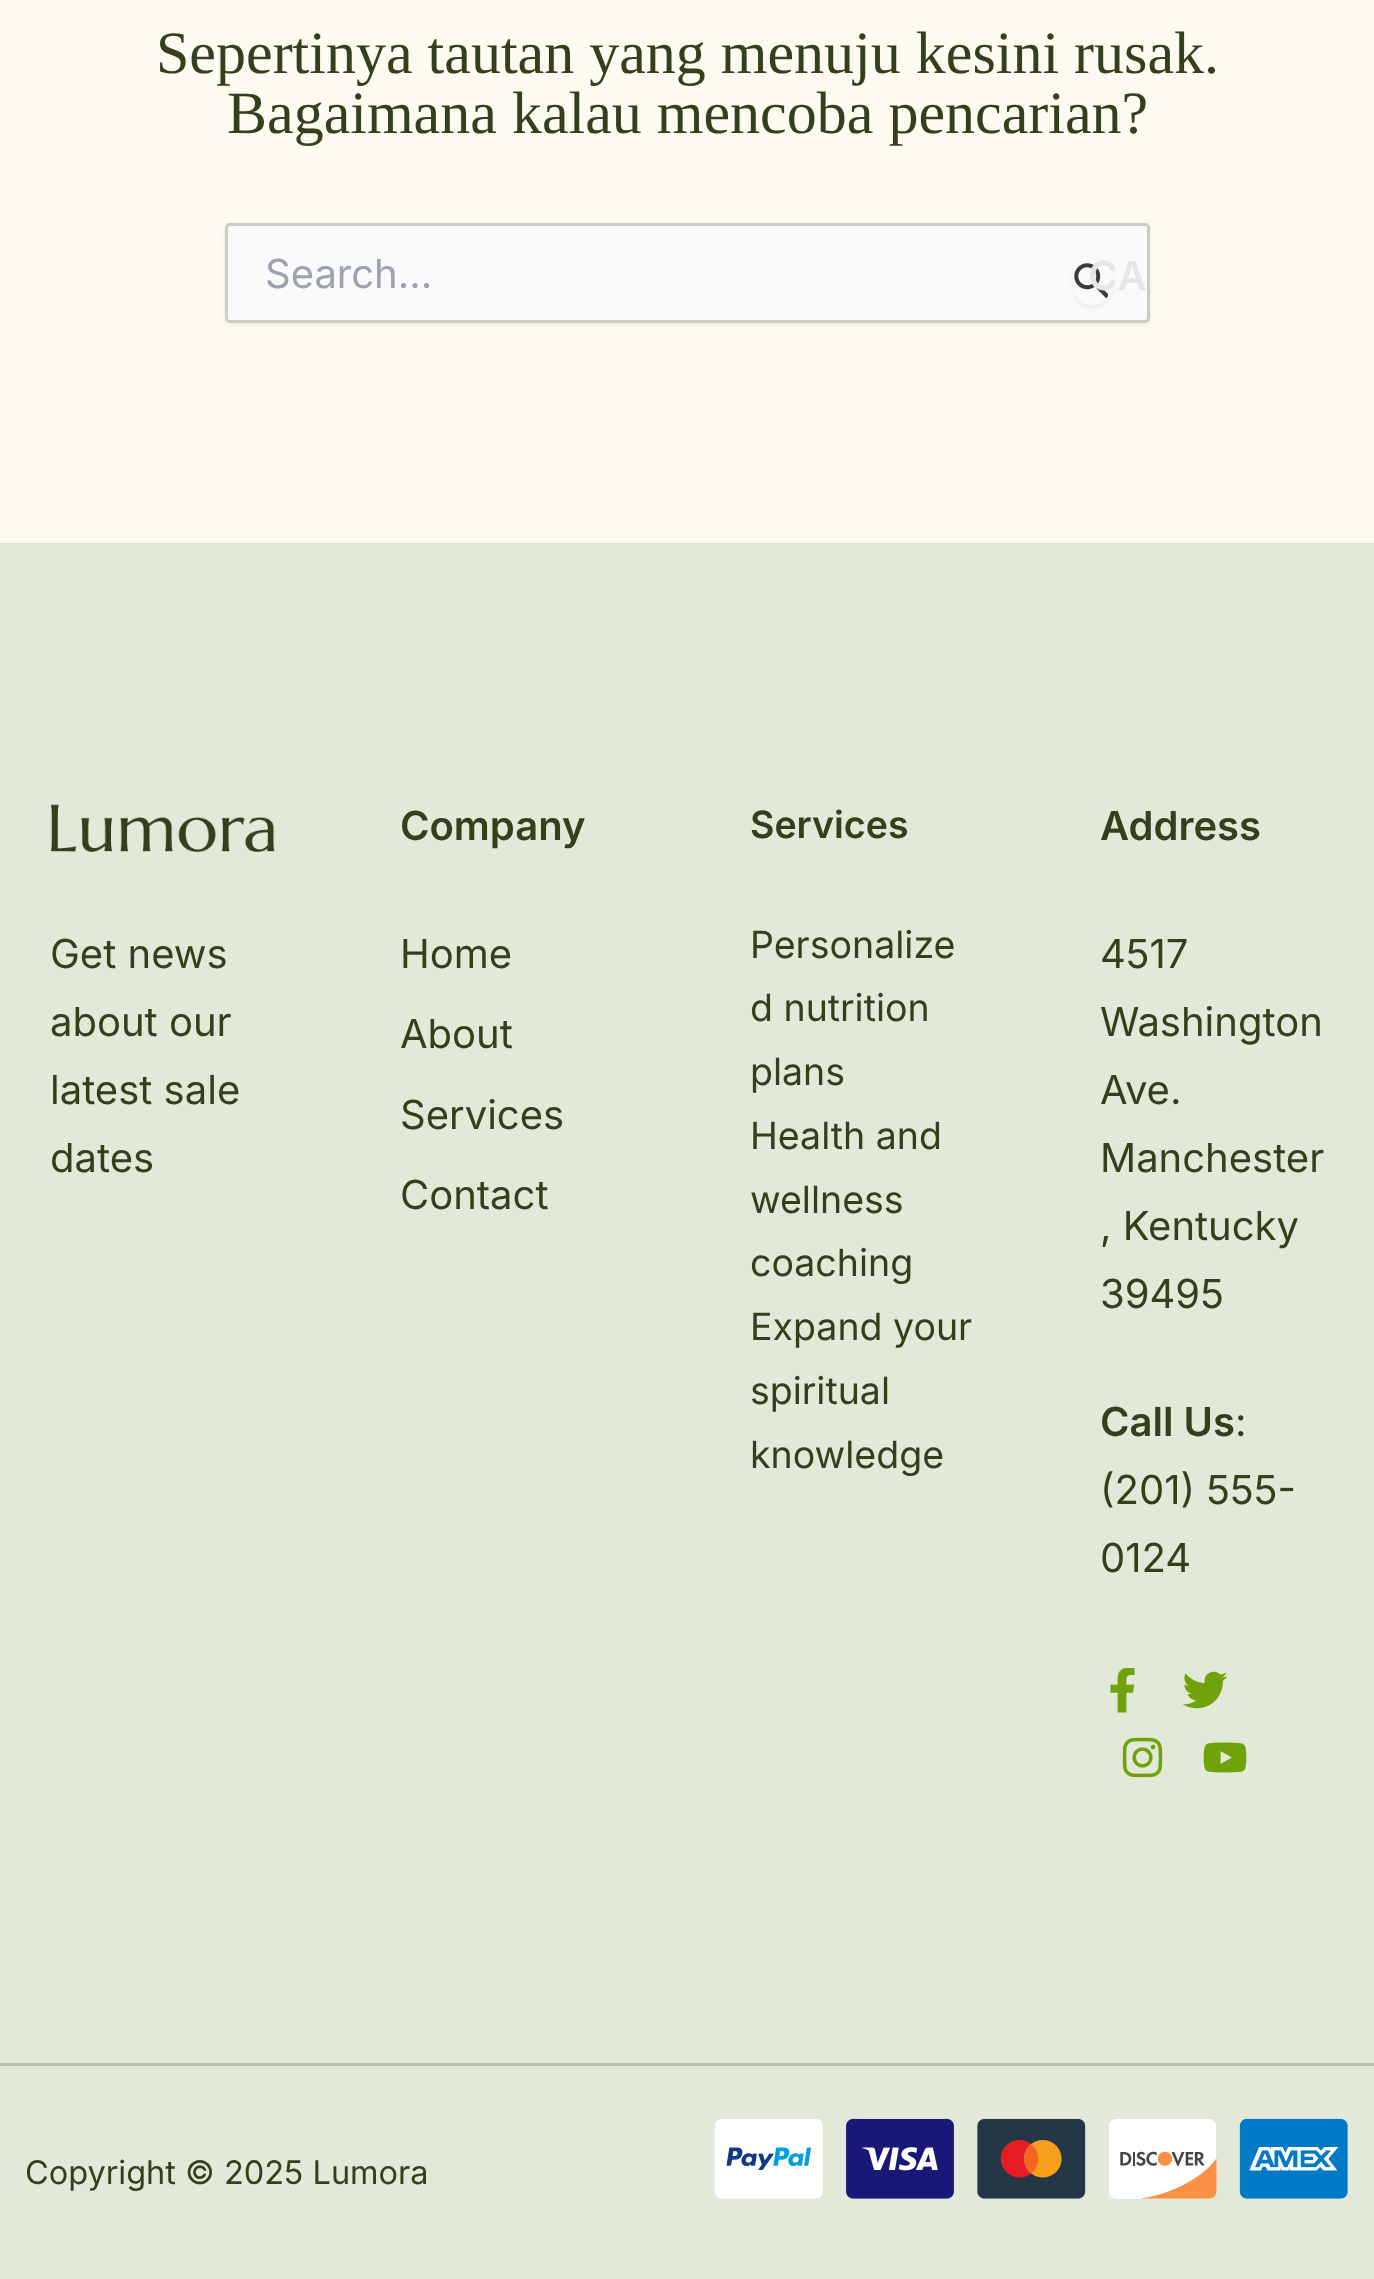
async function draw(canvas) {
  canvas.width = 1374;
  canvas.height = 2279;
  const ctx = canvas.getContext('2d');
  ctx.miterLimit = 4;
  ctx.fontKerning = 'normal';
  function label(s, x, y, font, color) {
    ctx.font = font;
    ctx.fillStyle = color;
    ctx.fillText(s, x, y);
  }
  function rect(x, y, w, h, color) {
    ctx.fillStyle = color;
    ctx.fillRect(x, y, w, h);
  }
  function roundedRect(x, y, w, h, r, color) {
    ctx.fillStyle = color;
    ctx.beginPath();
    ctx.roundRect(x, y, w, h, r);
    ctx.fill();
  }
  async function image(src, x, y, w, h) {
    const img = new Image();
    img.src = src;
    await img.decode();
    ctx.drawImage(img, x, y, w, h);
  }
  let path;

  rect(0, 0, 1374, 2279, '#fdfaf1');
  label('Sepertinya tautan yang menuju kesini rusak.', 156, 73, '60px Liberation Serif', '#343f1e');
  label('Bagaimana kalau mencoba pencarian?', 227, 133, '60px Liberation Serif', '#343f1e');
  ctx.fillStyle = '#0000000d';
  ctx.filter = 'blur(2.5px)';
  ctx.beginPath();
  ctx.roundRect(225, 225, 925, 100, 5);
  ctx.fill();
  ctx.filter = 'none';
  roundedRect(225, 223, 925, 100, 5, '#fafafa');
  ctx.beginPath();
  ctx.roundRect(226.5, 224.5, 922, 97, 3.5);
  ctx.strokeStyle = '#35401f3d';
  ctx.lineWidth = 3;
  ctx.stroke();
  label('Search...', 265, 288, '40px Inter', '#9ca3af');
  ctx.save();
  path = new Path2D('M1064 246H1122V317H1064ZM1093 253C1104 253 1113 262 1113 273V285C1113 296 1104 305 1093 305C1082 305 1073 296 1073 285V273C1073 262 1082 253 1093 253Z');
  ctx.clip(path, 'evenodd');
  ctx.fillStyle = '#0000000d';
  ctx.filter = 'blur(2.5px)';
  ctx.beginPath();
  ctx.roundRect(1073, 255, 40, 53, 20);
  ctx.fill();
  ctx.filter = 'none';
  ctx.restore();
  await image('assets/img1.png', 1074, 263, 34, 36);
  ctx.letterSpacing = '1px';
  label('CA', 1088, 290, '600 40px Inter', '#e5e6e5');
  rect(0, 543, 1374, 1520, '#e3e9d8');
  await image('assets/img2.png', 50, 804, 225, 48);
  ctx.letterSpacing = '0px';
  label('Get news', 50, 968, '40px Inter', '#343f1e');
  label('about our', 50, 1036, '40px Inter', '#343f1e');
  label('latest sale', 50, 1104, '40px Inter', '#343f1e');
  label('dates', 50, 1172, '40px Inter', '#343f1e');
  label('Company', 400, 840, '600 40px Inter', '#343f1e');
  label('Home', 400, 968, '40px Inter', '#343f1e');
  label('About', 400, 1048, '40px Inter', '#343f1e');
  label('Services', 400, 1129, '40px Inter', '#343f1e');
  label('Contact', 400, 1209, '40px Inter', '#343f1e');
  label('Services', 750, 838, '600 37.5px Inter', '#343f1e');
  label('Personalize', 750, 958, '37.5px Inter', '#343f1e');
  label('d nutrition', 750, 1021, '37.5px Inter', '#343f1e');
  label('plans', 750, 1085, '37.5px Inter', '#343f1e');
  label('Health and', 750, 1149, '37.5px Inter', '#343f1e');
  label('wellness', 750, 1213, '37.5px Inter', '#343f1e');
  label('coaching', 750, 1276, '37.5px Inter', '#343f1e');
  label('Expand your', 750, 1340, '37.5px Inter', '#343f1e');
  label('spiritual', 750, 1404, '37.5px Inter', '#343f1e');
  label('knowledge', 750, 1468, '37.5px Inter', '#343f1e');
  label('Address', 1100, 840, '600 40px Inter', '#343f1e');
  label('4517', 1100, 968, '40px Inter', '#343f1e');
  label('Washington', 1100, 1036, '40px Inter', '#343f1e');
  label('Ave.', 1100, 1104, '40px Inter', '#343f1e');
  label('Manchester', 1100, 1172, '40px Inter', '#343f1e');
  label(', Kentucky', 1100, 1240, '40px Inter', '#343f1e');
  label('39495', 1100, 1308, '40px Inter', '#343f1e');
  label('Call Us', 1100, 1436, '600 40px Inter', '#343f1e');
  label(':', 1235, 1436, '40px Inter', '#343f1e');
  label('(201) 555-', 1100, 1504, '40px Inter', '#343f1e');
  label('0124', 1100, 1572, '40px Inter', '#343f1e');
  await image('assets/img3.png', 1110, 1668, 25, 45);
  await image('assets/img4.png', 1183, 1671, 45, 38);
  await image('assets/img5.png', 1122, 1737, 41, 41);
  await image('assets/img6.png', 1203, 1742, 44, 31);
  rect(0, 2066, 1374, 213, '#e3e9d8');
  rect(0, 2063, 1374, 3, '#b9c0ac');
  label('Copyright © 2025 Lumora', 25, 2184, '32.5px Inter', '#343f1e');
  await image('assets/img7.png', 714, 2118, 634, 81);
}

draw(document.querySelector('canvas'));
